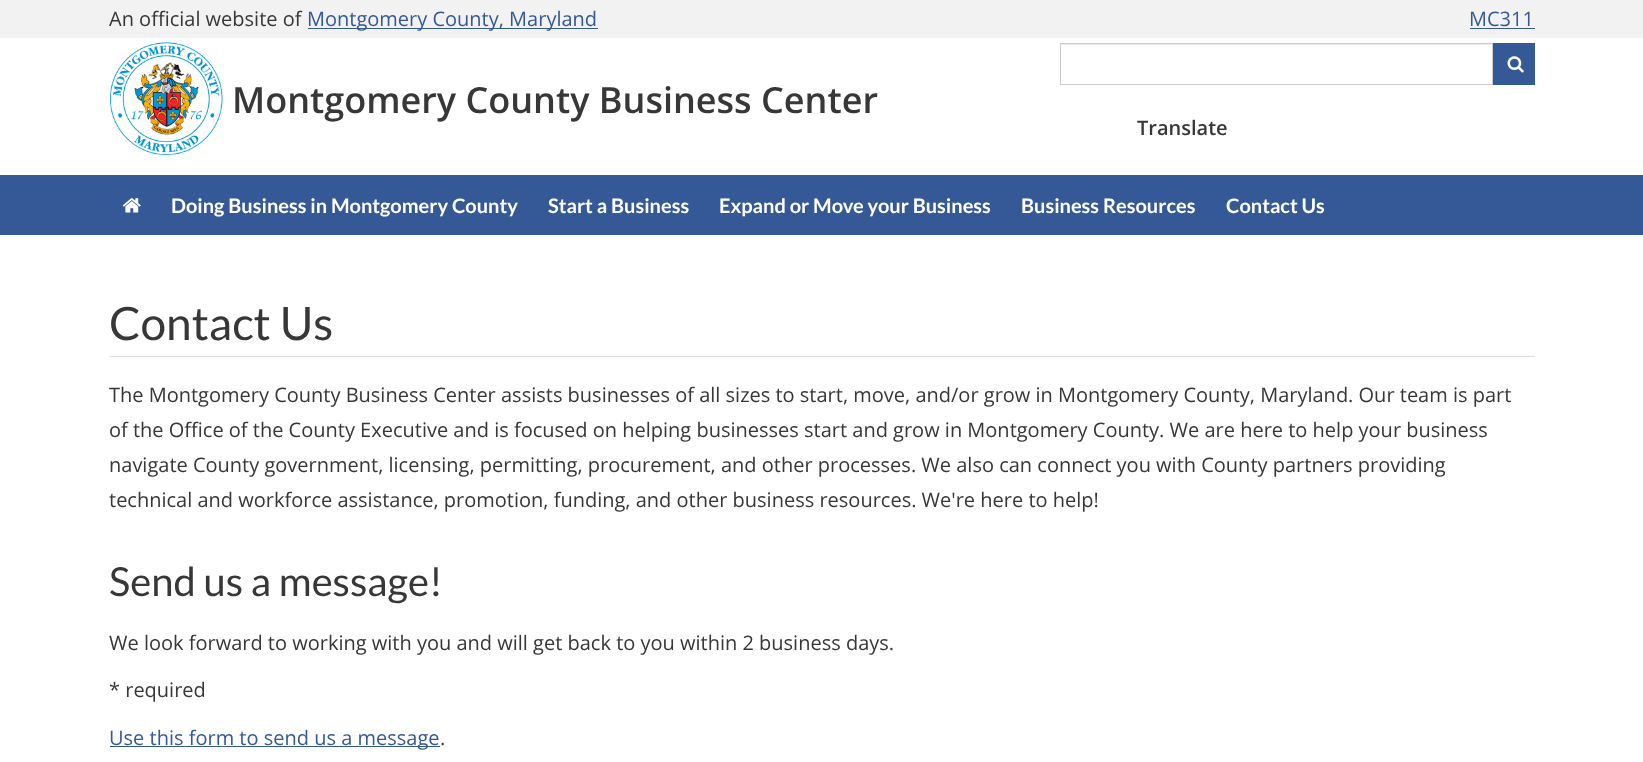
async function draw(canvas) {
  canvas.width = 1643;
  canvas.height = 762;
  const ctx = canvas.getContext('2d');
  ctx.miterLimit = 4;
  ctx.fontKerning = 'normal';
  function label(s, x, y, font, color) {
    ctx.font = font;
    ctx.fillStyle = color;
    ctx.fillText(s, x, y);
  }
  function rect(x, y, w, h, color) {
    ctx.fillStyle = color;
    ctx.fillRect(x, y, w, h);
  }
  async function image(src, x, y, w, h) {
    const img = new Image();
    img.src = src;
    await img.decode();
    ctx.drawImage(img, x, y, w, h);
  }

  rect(0, 0, 1643, 762, '#fff');
  rect(0, 0, 1643, 38, '#f2f2f2');
  label('An official website of', 109, 26, '20px Open Sans', '#373737');
  rect(308, 28, 290, 1, '#355997');
  label('Montgomery County, Maryland', 307, 26, '20px Open Sans', '#355997');
  label('MC311', 1469, 26, '20px Open Sans', '#355997');
  rect(1470, 28, 65, 1, '#355997');
  rect(1061, 44, 430, 1, '#ececec');
  ctx.strokeStyle = '#ccc';
  ctx.strokeRect(1060.5, 43.5, 432, 41);
  rect(1493, 43, 42, 42, '#355997');
  await image('assets/img1.png', 1507, 56, 17, 17);
  await image('assets/img2.png', 110, 42, 113, 113);
  label('Montgomery County Business Center', 232, 113, '600 36px Open Sans', '#373737');
  rect(0, 175, 1643, 60, '#355997');
  label('Translate', 1137, 135, '600 20px Open Sans', '#373737');
  await image('assets/img3.png', 122, 198, 19, 15);
  label('Doing Business in Montgomery County', 171, 213, 'bold 20px Lato', '#fff');
  label('Start a Business', 548, 213, 'bold 20px Lato', '#fff');
  label('Expand or Move your Business', 719, 213, 'bold 20px Lato', '#fff');
  label('Business Resources', 1021, 213, 'bold 20px Lato', '#fff');
  label('Contact Us', 1226, 213, 'bold 20px Lato', '#fff');
  rect(110, 356, 1425, 1, '#dedede');
  label('Contact Us', 109, 340, '46px Lato', '#373737');
  label('The Montgomery County Business Center assists businesses of all sizes to start, move, and/or grow in Montgomery County, Maryland. Our team is part', 109, 402, '20px Open Sans', '#373737');
  label('of the Office of the County Executive and is focused on helping businesses start and grow in Montgomery County. We are here to help your business', 109, 437, '20px Open Sans', '#373737');
  label('navigate County government, licensing, permitting, procurement, and other processes. We also can connect you with County partners providing', 109, 472, '20px Open Sans', '#373737');
  label('technical and workforce assistance, promotion, funding, and other business resources. We\'re here to help!', 109, 507, '20px Open Sans', '#373737');
  label('Send us a message!', 109, 596, '40px Lato', '#373737');
  label('We look forward to working with you and will get back to you within 2 business days.', 109, 650, '20px Open Sans', '#373737');
  label('* required', 109, 697, '20px Open Sans', '#373737');
  rect(110, 746, 330, 1, '#355997');
  label('Use this form to send us a message', 109, 745, '20px Open Sans', '#355997');
  label('.', 440, 745, '20px Open Sans', '#373737');
}

draw(document.querySelector('canvas'));
